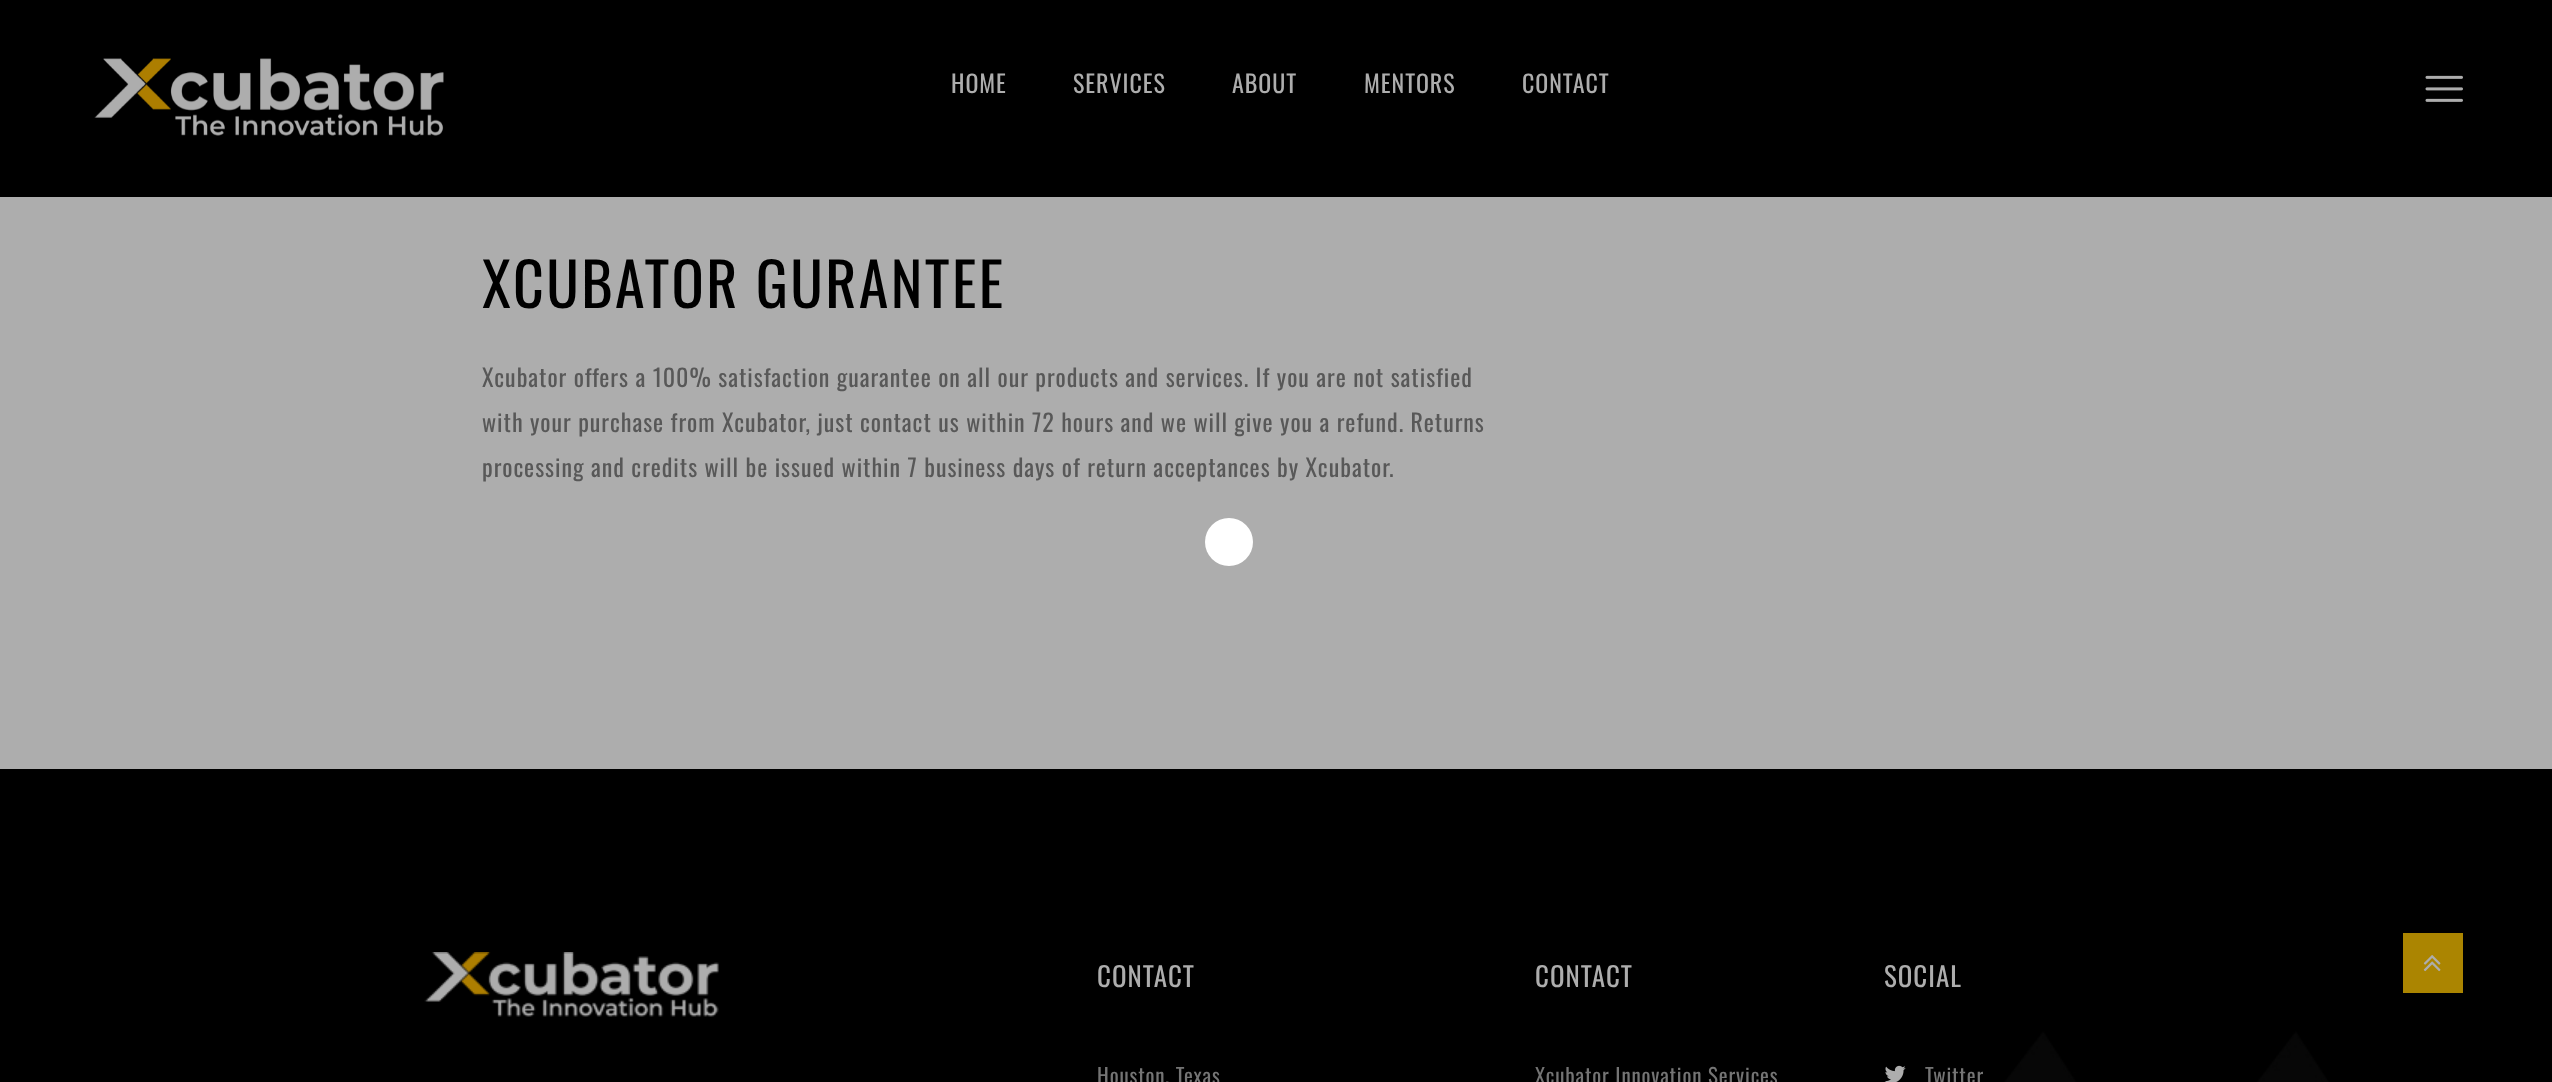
async function draw(canvas) {
  canvas.width = 2552;
  canvas.height = 1082;
  const ctx = canvas.getContext('2d');
  ctx.miterLimit = 4;
  ctx.fontKerning = 'normal';
  function label(s, x, y, font, color) {
    ctx.font = font;
    ctx.fillStyle = color;
    ctx.fillText(s, x, y);
  }
  function rect(x, y, w, h, color) {
    ctx.fillStyle = color;
    ctx.fillRect(x, y, w, h);
  }
  async function image(src, x, y, w, h) {
    const img = new Image();
    img.src = src;
    await img.decode();
    ctx.drawImage(img, x, y, w, h);
  }

  rect(0, 0, 2552, 1082, '#adadad');
  rect(0, 0, 2552, 197, '#000');
  await image('assets/img1.png', 94, 58, 350, 78);
  ctx.letterSpacing = '0.96px';
  label('HOME', 951, 93, '24px Oswald', '#adadad');
  label('SERVICES', 1073, 93, '24px Oswald', '#adadad');
  label('ABOUT', 1232, 93, '24px Oswald', '#adadad');
  label('MENTORS', 1364, 93, '24px Oswald', '#adadad');
  label('CONTACT', 1522, 93, '24px Oswald', '#adadad');
  await image('assets/img2.png', 2425, 75, 38, 27);
  ctx.letterSpacing = '2.4px';
  label('XCUBATOR GURANTEE', 482, 308, '60px Oswald', '#000');
  ctx.letterSpacing = '0.96px';
  label('Xcubator offers a 100% satisfaction guarantee on all our products and services. If you are not satisfied', 482, 387, '24px Oswald', '#585858');
  label('with your purchase from Xcubator, just contact us within 72 hours and we will give you a refund. Returns', 482, 432, '24px Oswald', '#585858');
  label('processing and credits will be issued within 7 business days of return acceptances by Xcubator.', 482, 477, '24px Oswald', '#585858');
  ctx.fillStyle = '#fff';
  ctx.beginPath();
  ctx.arc(1229, 542, 24, 0, 2 * Math.PI);
  ctx.fill();
  await image('assets/img3.png', 0, 769, 2552, 313);
  await image('assets/img4.png', 424, 952, 295, 65);
  ctx.letterSpacing = '1px';
  label('CONTACT', 1097, 987, '27px Oswald', '#adadad');
  ctx.letterSpacing = '0.85px';
  label('Houston, Texas', 1097, 1084, '21px Oswald', '#747474');
  ctx.letterSpacing = '1px';
  label('CONTACT', 1535, 987, '27px Oswald', '#adadad');
  ctx.letterSpacing = '0.85px';
  label('Xcubator Innovation Services', 1535, 1084, '21px Oswald', '#747474');
  ctx.letterSpacing = '1px';
  label('SOCIAL', 1884, 987, '27px Oswald', '#adadad');
  await image('assets/img5.png', 1884, 1065, 22, 17);
  ctx.letterSpacing = '0.85px';
  label('Twitter', 1925, 1084, '21px Oswald', '#747474');
  rect(2403, 933, 60, 60, '#ab8501');
  await image('assets/img6.png', 2423, 955, 18, 17);
}

draw(document.querySelector('canvas'));
